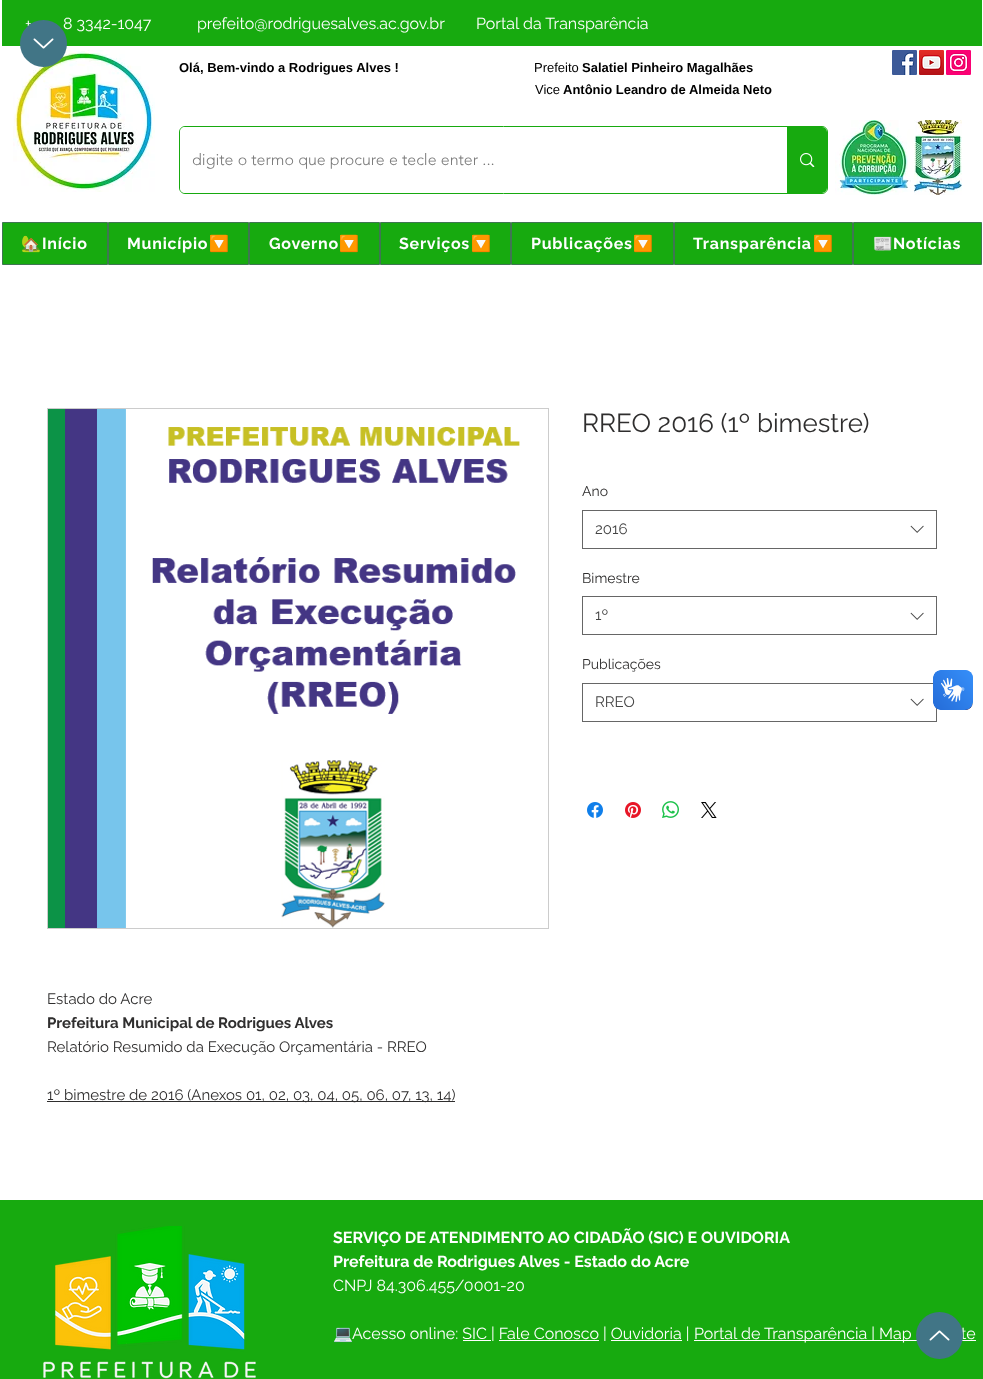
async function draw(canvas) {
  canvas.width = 983;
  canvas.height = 1379;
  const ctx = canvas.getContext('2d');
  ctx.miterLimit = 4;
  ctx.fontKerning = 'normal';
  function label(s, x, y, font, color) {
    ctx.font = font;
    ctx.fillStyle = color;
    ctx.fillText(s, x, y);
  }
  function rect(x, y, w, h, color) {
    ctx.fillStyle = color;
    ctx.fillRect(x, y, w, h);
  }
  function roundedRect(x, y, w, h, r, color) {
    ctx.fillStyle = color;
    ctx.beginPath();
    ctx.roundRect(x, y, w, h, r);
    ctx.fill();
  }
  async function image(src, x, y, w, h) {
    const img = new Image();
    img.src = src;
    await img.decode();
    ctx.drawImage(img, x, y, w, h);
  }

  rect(0, 0, 983, 1379, '#fff');
  rect(2, 0, 980, 46, '#17aa0f');
  label('+', 25, 29, '16px Raleway', '#fff');
  label('8 3342-1047', 63, 29, '16px Raleway', '#fff');
  label('prefeito@rodriguesalves.ac.gov.br', 197, 29, '16px Raleway', '#fff');
  label('Portal da Transparência', 476, 29, '16px Raleway', '#fff');
  await image('assets/img1.png', 13, 50, 142, 142);
  label('Olá, Bem-vindo a Rodrigues Alves !', 179, 72, 'bold 13px Liberation Sans', '#000');
  label('Prefeito', 534, 72, '13px Liberation Sans', '#000');
  label('Salatiel Pinheiro Magalhães', 582, 72, 'bold 13px Liberation Sans', '#000');
  await image('assets/img2.png', 892, 50, 25, 25);
  await image('assets/img3.png', 919, 50, 25, 25);
  await image('assets/img4.png', 946, 50, 25, 25);
  label('Vice', 535, 94, '13px Liberation Sans', '#000');
  label('Antônio Leandro de Almeida Neto', 563, 94, 'bold 13px Liberation Sans', '#000');
  ctx.beginPath();
  ctx.roundRect(179.5, 126.5, 648, 67, 5.5);
  ctx.strokeStyle = '#17aa0f';
  ctx.stroke();
  roundedRect(180, 127, 647, 66, 5, '#fff');
  label('digite o termo que procure e tecle enter ...', 192, 165, '300 16px "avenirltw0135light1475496"', '#787878');
  ctx.fillStyle = '#17aa0f';
  ctx.beginPath();
  ctx.roundRect(787, 127, 40, 66, [0, 5, 5, 0]);
  ctx.fill();
  await image('assets/img5.png', 800, 153, 15, 14);
  await image('assets/img6.png', 835, 120, 79, 75);
  await image('assets/img7.png', 914, 120, 48, 75);
  ctx.beginPath();
  ctx.rect(2.5, 222.5, 105, 42);
  ctx.fill();
  ctx.strokeStyle = '#3f7652';
  ctx.stroke();
  ctx.letterSpacing = '0.75px';
  label('🏡', 21, 249, 'bold 16px Noto Color Emoji', '#fff');
  label('Início', 42, 249, 'bold 16px Raleway', '#fff');
  ctx.fillStyle = '#17aa0f';
  ctx.beginPath();
  ctx.rect(108.5, 222.5, 140, 42);
  ctx.fill();
  ctx.stroke();
  label('Município', 127, 249, 'bold 16px Raleway', '#fff');
  label('🔽', 209, 249, 'bold 16px Noto Color Emoji', '#fff');
  ctx.fillStyle = '#17aa0f';
  ctx.beginPath();
  ctx.rect(249.5, 222.5, 130, 42);
  ctx.fill();
  ctx.stroke();
  label('Governo', 269, 249, 'bold 16px Raleway', '#fff');
  label('🔽', 339, 249, 'bold 16px Noto Color Emoji', '#fff');
  ctx.fillStyle = '#17aa0f';
  ctx.beginPath();
  ctx.rect(380.5, 222.5, 130, 42);
  ctx.fill();
  ctx.stroke();
  label('Serviços', 399, 249, 'bold 16px Raleway', '#fff');
  label('🔽', 471, 249, 'bold 16px Noto Color Emoji', '#fff');
  ctx.fillStyle = '#17aa0f';
  ctx.beginPath();
  ctx.rect(511.5, 222.5, 162, 42);
  ctx.fill();
  ctx.stroke();
  label('Publicações', 531, 249, 'bold 16px Raleway', '#fff');
  label('🔽', 633, 249, 'bold 16px Noto Color Emoji', '#fff');
  ctx.fillStyle = '#17aa0f';
  ctx.beginPath();
  ctx.rect(674.5, 222.5, 178, 42);
  ctx.fill();
  ctx.stroke();
  label('Transparência', 693, 249, 'bold 16px Raleway', '#fff');
  label('🔽', 813, 249, 'bold 16px Noto Color Emoji', '#fff');
  ctx.fillStyle = '#17aa0f';
  ctx.beginPath();
  ctx.rect(853.5, 222.5, 128, 42);
  ctx.fill();
  ctx.stroke();
  label('📰', 873, 249, 'bold 16px Noto Color Emoji', '#fff');
  label('Notícias', 893, 249, 'bold 16px Raleway', '#fff');
  ctx.fillStyle = '#417586';
  ctx.beginPath();
  ctx.arc(43.5, 43.5, 23.5, 0, 2 * Math.PI);
  ctx.fill();
  await image('assets/img8.png', 33, 38, 21, 11);
  ctx.letterSpacing = '0px';
  label('RREO 2016 (1º bimestre)', 582, 432, '26px Raleway', '#2f2e2e');
  label('Ano', 582, 496, '14px Raleway', '#2f2e2e');
  ctx.strokeStyle = '#666';
  ctx.strokeRect(582.5, 510.5, 354, 38);
  label('2016', 595, 534, '15px Raleway', '#444');
  await image('assets/img9.png', 910, 525, 14, 8);
  label('Bimestre', 582, 583, '14px Raleway', '#2f2e2e');
  ctx.strokeRect(582.5, 596.5, 354, 38);
  label('1º', 595, 620, '15px Raleway', '#444');
  await image('assets/img9.png', 910, 612, 14, 8);
  label('Publicações', 582, 669, '14px Raleway', '#2f2e2e');
  ctx.strokeRect(582.5, 683.5, 354, 38);
  label('RREO', 595, 707, '15px Raleway', '#444');
  await image('assets/img9.png', 910, 698, 14, 8);
  await image('assets/img10.png', 587, 802, 16, 16);
  await image('assets/img11.png', 625, 802, 16, 16);
  await image('assets/img12.png', 662, 801, 17, 17);
  await image('assets/img13.png', 701, 802, 16, 16);
  ctx.strokeStyle = '#ccc';
  ctx.strokeRect(47.5, 408.5, 501, 520);
  await image('assets/img14.png', 48, 409, 472, 519);
  label('Estado do Acre', 47, 1004, '15px Raleway', '#2f2e2e');
  label('Prefeitura Municipal de Rodrigues Alves', 47, 1028, 'bold 15px Raleway', '#2f2e2e');
  label('Relatório Resumido da Execução Orçamentária - RREO', 47, 1052, '15px Raleway', '#2f2e2e');
  rect(47, 1101, 408, 1, '#2f2e2e');
  label('1º bimestre de 2016 (Anexos 01, 02, 03, 04, 05, 06, 07, 13, 14)', 47, 1100, '15px Raleway', '#2f2e2e');
  rect(0, 1200, 983, 179, '#17aa0f');
  await image('assets/img15.png', 43, 1226, 213, 153);
  label('SERVIÇO DE ATENDIMENTO AO CIDADÃO (SIC) E OUVIDORIA', 333, 1243, 'bold 16px Raleway', '#fff');
  label('Prefeitura de Rodrigues Alves - Estado do Acre', 333, 1267, 'bold 16px Raleway', '#fff');
  label('CNPJ 84.306.455/0001-20', 333, 1291, '16px Raleway', '#fff');
  label('💻', 333, 1339, '16px Noto Color Emoji', '#fff');
  label('Acesso online: SIC | Fale Conosco | Ouvidoria |', 352, 1339, '16px Raleway', '#fff');
  rect(694, 1340, 282, 1, '#fff');
  label('Portal de Transparência | Map', 694, 1339, '16px Raleway', '#fff');
  label('te', 961, 1339, '16px Raleway', '#fff');
  rect(463, 1340, 28, 1, '#fff');
  rect(499, 1340, 100, 1, '#fff');
  rect(611, 1340, 71, 1, '#fff');
  ctx.fillStyle = '#417586';
  ctx.beginPath();
  ctx.arc(939.5, 1335.5, 23.5, 0, 2 * Math.PI);
  ctx.fill();
  await image('assets/img16.png', 929, 1330, 21, 11);
  await image('assets/img17.png', 933, 670, 40, 40);
  await image('assets/img18.png', 933, 670, 40, 40);
}

draw(document.querySelector('canvas'));
